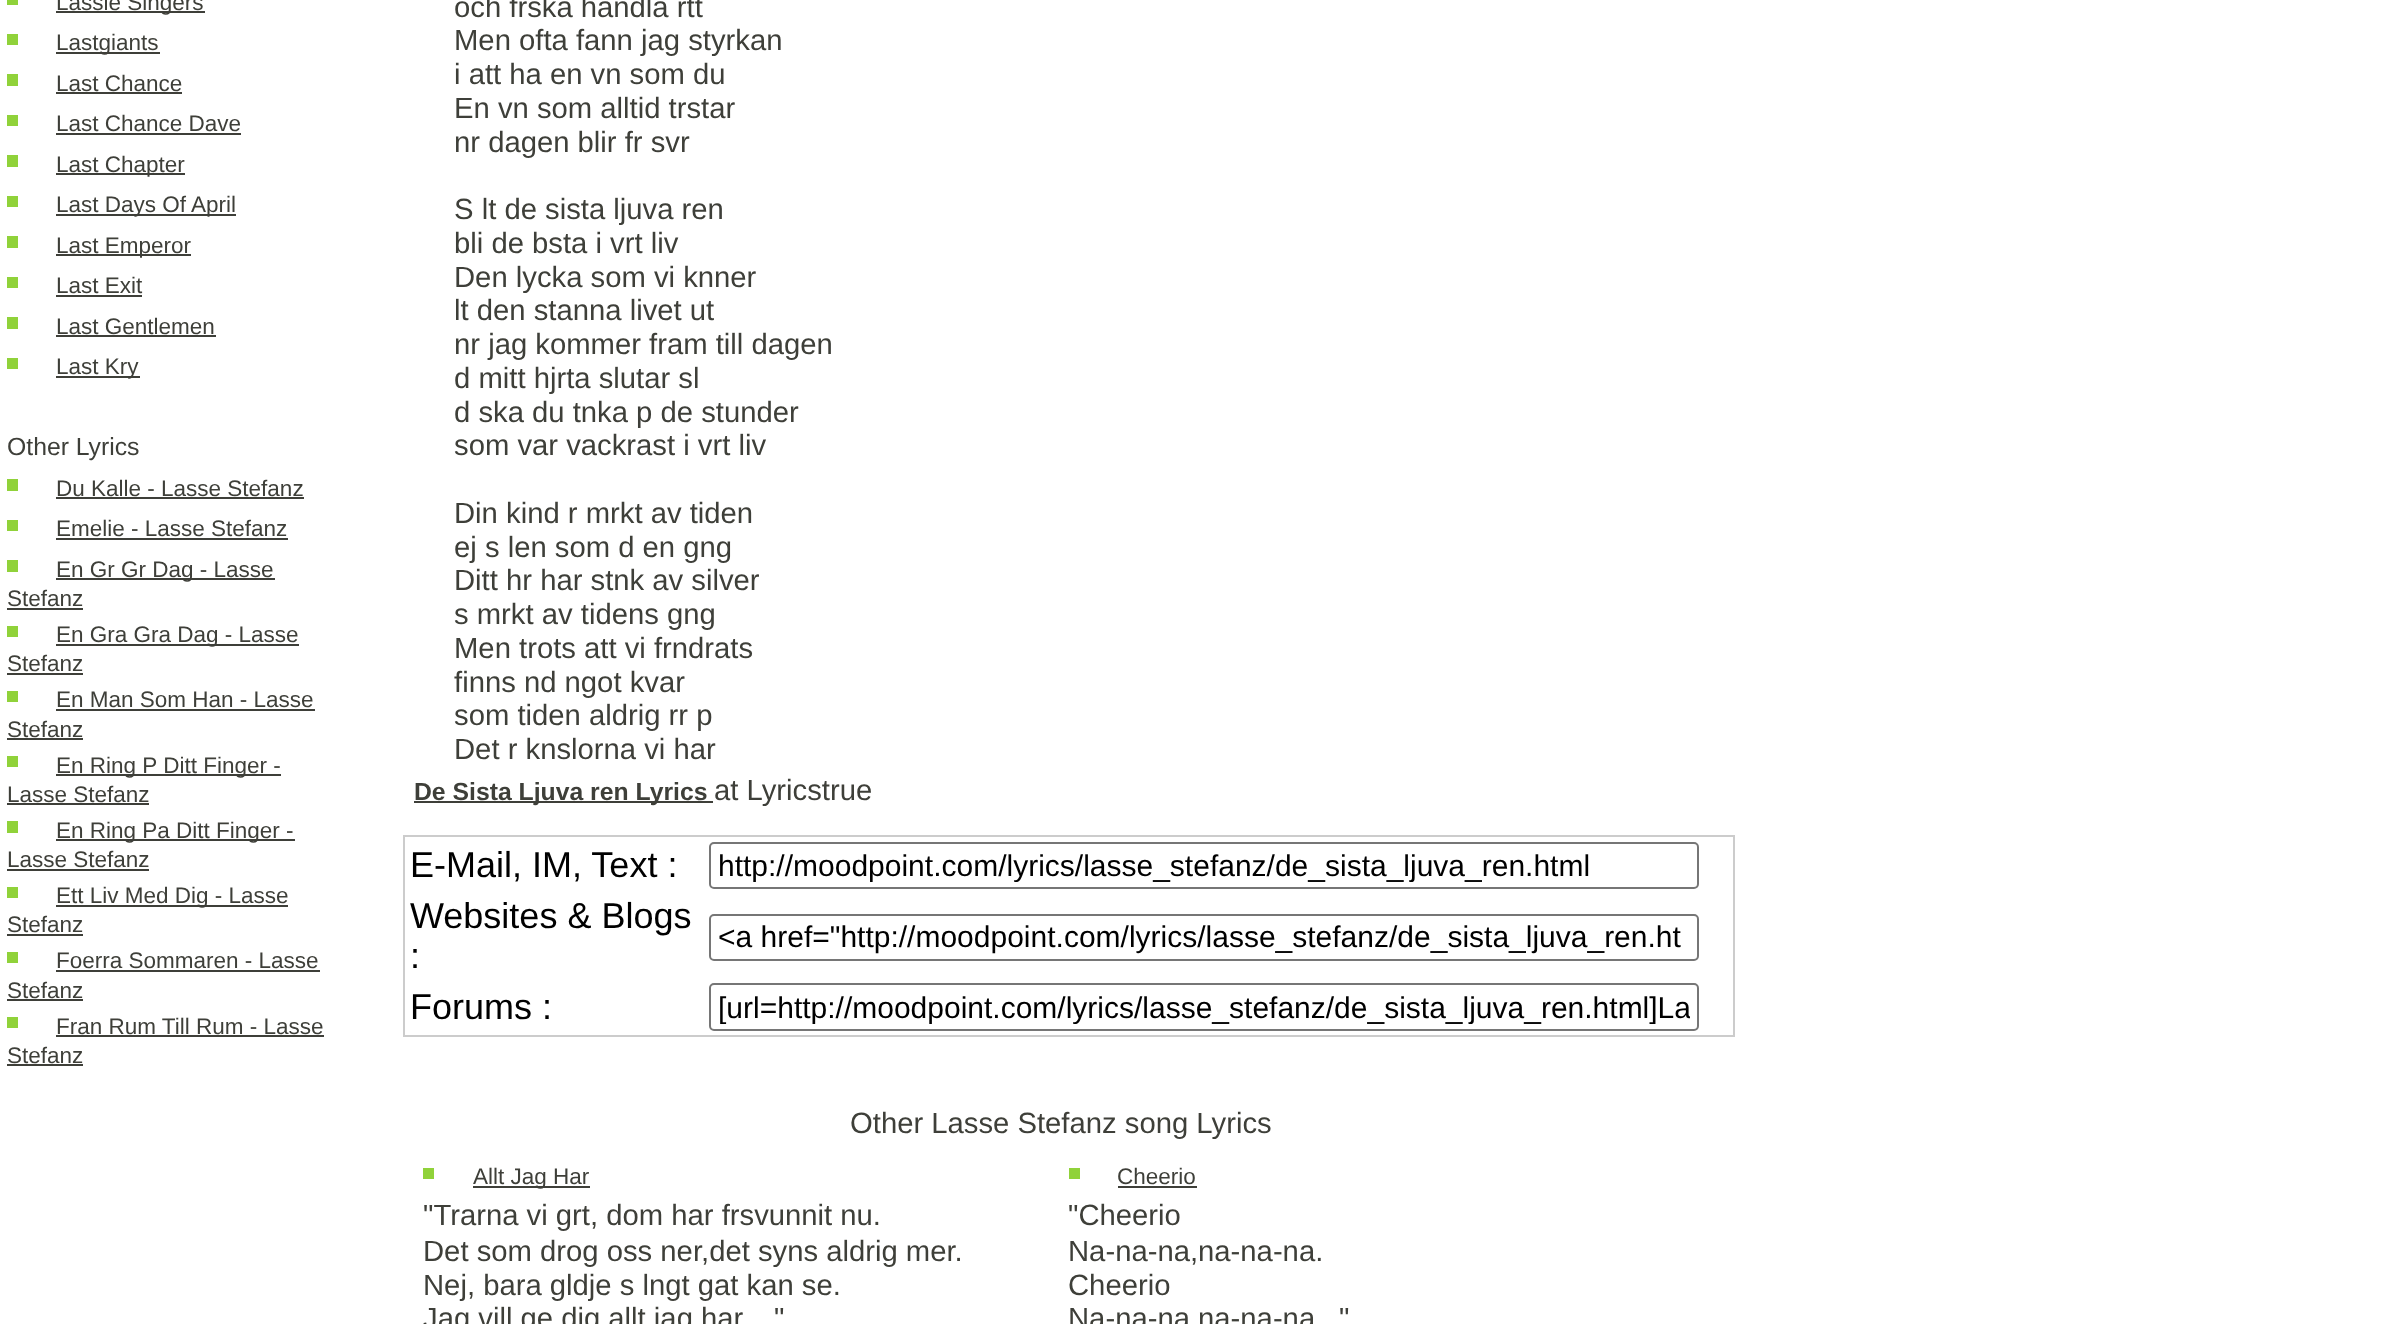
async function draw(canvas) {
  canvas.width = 2396;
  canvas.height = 1324;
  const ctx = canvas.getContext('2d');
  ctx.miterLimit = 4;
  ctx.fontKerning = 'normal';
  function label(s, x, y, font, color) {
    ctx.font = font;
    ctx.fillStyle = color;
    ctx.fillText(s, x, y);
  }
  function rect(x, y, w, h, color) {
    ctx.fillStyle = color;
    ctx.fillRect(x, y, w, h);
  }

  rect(0, 0, 2396, 1324, '#fff');
  rect(7, 0, 11, 5, '#90d23a');
  rect(56, 11, 149, 2, '#3e3f39');
  label('Lassie Singers', 56, 10, '22.5px Liberation Sans', '#3e3f39');
  rect(7, 34, 11, 11, '#90d23a');
  rect(56, 52, 104, 2, '#3e3f39');
  label('Lastgiants', 56, 50, '22.5px Liberation Sans', '#3e3f39');
  rect(7, 74, 11, 12, '#90d23a');
  label('Last Chance', 56, 91, '22.5px Liberation Sans', '#3e3f39');
  rect(56, 92, 126, 2, '#3e3f39');
  rect(7, 115, 11, 11, '#90d23a');
  label('Last Chance Dave', 56, 131, '22.5px Liberation Sans', '#3e3f39');
  rect(56, 133, 185, 2, '#3e3f39');
  rect(7, 155, 11, 12, '#90d23a');
  rect(56, 173, 129, 2, '#3e3f39');
  label('Last Chapter', 56, 172, '22.5px Liberation Sans', '#3e3f39');
  rect(7, 196, 11, 11, '#90d23a');
  rect(56, 214, 180, 2, '#3e3f39');
  label('Last Days Of April', 56, 212, '22.5px Liberation Sans', '#3e3f39');
  rect(7, 236, 11, 12, '#90d23a');
  rect(56, 254, 135, 2, '#3e3f39');
  label('Last Emperor', 56, 253, '22.5px Liberation Sans', '#3e3f39');
  rect(7, 277, 11, 11, '#90d23a');
  label('Last Exit', 56, 293, '22.5px Liberation Sans', '#3e3f39');
  rect(56, 295, 86, 2, '#3e3f39');
  rect(7, 317, 11, 12, '#90d23a');
  label('Last Gentlemen', 56, 334, '22.5px Liberation Sans', '#3e3f39');
  rect(56, 335, 160, 2, '#3e3f39');
  rect(7, 358, 11, 11, '#90d23a');
  rect(56, 376, 84, 2, '#3e3f39');
  label('Last Kry', 56, 374, '22.5px Liberation Sans', '#3e3f39');
  label('Other Lyrics', 7, 455, '24.75px Liberation Sans', '#3e3f39');
  rect(7, 479, 11, 12, '#90d23a');
  label('Du Kalle - Lasse Stefanz', 56, 496, '22.5px Liberation Sans', '#3e3f39');
  rect(56, 497, 248, 2, '#3e3f39');
  rect(7, 520, 11, 11, '#90d23a');
  label('Emelie - Lasse Stefanz', 56, 536, '22.5px Liberation Sans', '#3e3f39');
  rect(56, 538, 232, 2, '#3e3f39');
  rect(7, 560, 11, 12, '#90d23a');
  rect(56, 578, 219, 2, '#3e3f39');
  label('En Gr Gr Dag - Lasse', 56, 577, '22.5px Liberation Sans', '#3e3f39');
  label('Stefanz', 7, 606, '22.5px Liberation Sans', '#3e3f39');
  rect(7, 608, 76, 2, '#3e3f39');
  rect(7, 626, 11, 11, '#90d23a');
  rect(56, 644, 243, 2, '#3e3f39');
  label('En Gra Gra Dag - Lasse', 56, 642, '22.5px Liberation Sans', '#3e3f39');
  label('Stefanz', 7, 671, '22.5px Liberation Sans', '#3e3f39');
  rect(7, 673, 76, 2, '#3e3f39');
  rect(7, 691, 11, 11, '#90d23a');
  label('En Man Som Han - Lasse', 56, 707, '22.5px Liberation Sans', '#3e3f39');
  rect(56, 709, 259, 2, '#3e3f39');
  label('Stefanz', 7, 737, '22.5px Liberation Sans', '#3e3f39');
  rect(7, 738, 76, 2, '#3e3f39');
  rect(7, 756, 11, 11, '#90d23a');
  rect(56, 774, 225, 2, '#3e3f39');
  label('En Ring P Ditt Finger -', 56, 773, '22.5px Liberation Sans', '#3e3f39');
  label('Lasse Stefanz', 7, 802, '22.5px Liberation Sans', '#3e3f39');
  rect(7, 803, 142, 2, '#3e3f39');
  rect(7, 821, 11, 12, '#90d23a');
  rect(56, 839, 239, 2, '#3e3f39');
  label('En Ring Pa Ditt Finger -', 56, 838, '22.5px Liberation Sans', '#3e3f39');
  label('Lasse Stefanz', 7, 867, '22.5px Liberation Sans', '#3e3f39');
  rect(7, 869, 142, 2, '#3e3f39');
  rect(7, 887, 11, 11, '#90d23a');
  rect(56, 905, 232, 2, '#3e3f39');
  label('Ett Liv Med Dig - Lasse', 56, 903, '22.5px Liberation Sans', '#3e3f39');
  label('Stefanz', 7, 932, '22.5px Liberation Sans', '#3e3f39');
  rect(7, 934, 76, 2, '#3e3f39');
  rect(7, 952, 11, 11, '#90d23a');
  label('Foerra Sommaren - Lasse', 56, 968, '22.5px Liberation Sans', '#3e3f39');
  rect(56, 970, 264, 2, '#3e3f39');
  label('Stefanz', 7, 998, '22.5px Liberation Sans', '#3e3f39');
  rect(7, 999, 76, 2, '#3e3f39');
  rect(7, 1017, 11, 11, '#90d23a');
  label('Fran Rum Till Rum - Lasse', 56, 1034, '22.5px Liberation Sans', '#3e3f39');
  rect(56, 1035, 268, 2, '#3e3f39');
  label('Stefanz', 7, 1063, '22.5px Liberation Sans', '#3e3f39');
  rect(7, 1064, 76, 2, '#3e3f39');
  label('och frska handla rtt', 454, 17, '29.25px Liberation Sans', '#3e3f39');
  label('Men ofta fann jag styrkan', 454, 50, '29.25px Liberation Sans', '#3e3f39');
  label('i att ha en vn som du', 454, 84, '29.25px Liberation Sans', '#3e3f39');
  label('En vn som alltid trstar', 454, 118, '29.25px Liberation Sans', '#3e3f39');
  label('nr dagen blir fr svr', 454, 152, '29.25px Liberation Sans', '#3e3f39');
  label('S lt de sista ljuva ren', 454, 219, '29.25px Liberation Sans', '#3e3f39');
  label('bli de bsta i vrt liv', 454, 253, '29.25px Liberation Sans', '#3e3f39');
  label('Den lycka som vi knner', 454, 287, '29.25px Liberation Sans', '#3e3f39');
  label('lt den stanna livet ut', 454, 320, '29.25px Liberation Sans', '#3e3f39');
  label('nr jag kommer fram till dagen', 454, 354, '29.25px Liberation Sans', '#3e3f39');
  label('d mitt hjrta slutar sl', 454, 388, '29.25px Liberation Sans', '#3e3f39');
  label('d ska du tnka p de stunder', 454, 422, '29.25px Liberation Sans', '#3e3f39');
  label('som var vackrast i vrt liv', 454, 455, '29.25px Liberation Sans', '#3e3f39');
  label('Din kind r mrkt av tiden', 454, 523, '29.25px Liberation Sans', '#3e3f39');
  label('ej s len som d en gng', 454, 557, '29.25px Liberation Sans', '#3e3f39');
  label('Ditt hr har stnk av silver', 454, 590, '29.25px Liberation Sans', '#3e3f39');
  label('s mrkt av tidens gng', 454, 624, '29.25px Liberation Sans', '#3e3f39');
  label('Men trots att vi frndrats', 454, 658, '29.25px Liberation Sans', '#3e3f39');
  label('finns nd ngot kvar', 454, 692, '29.25px Liberation Sans', '#3e3f39');
  label('som tiden aldrig rr p', 454, 725, '29.25px Liberation Sans', '#3e3f39');
  label('Det r knslorna vi har', 454, 759, '29.25px Liberation Sans', '#3e3f39');
  rect(414, 801, 299, 2, '#3e3f39');
  label('De Sista Ljuva ren Lyrics', 414, 800, 'bold 24.75px Liberation Sans', '#3e3f39');
  label('at Lyricstrue', 714, 800, '29.25px Liberation Sans', '#3e3f39');
  ctx.strokeStyle = '#ccc';
  ctx.lineWidth = 2;
  ctx.strokeRect(404, 836, 1330, 200);
  label('E-Mail, IM, Text :', 410, 877, '36px Liberation Sans', '#000');
  ctx.beginPath();
  ctx.roundRect(710, 843, 988, 45, 4);
  ctx.strokeStyle = '#767676';
  ctx.stroke();
  ctx.save();
  ctx.beginPath();
  ctx.rect(718, 848, 972, 34);
  ctx.clip();
  label('http://moodpoint.com/lyrics/lasse_stefanz/de_sista_ljuva_ren.html', 718, 876, '30px Liberation Sans', '#000');
  ctx.restore();
  label('Websites & Blogs', 410, 928, '36px Liberation Sans', '#000');
  label(':', 410, 968, '36px Liberation Sans', '#000');
  ctx.beginPath();
  ctx.roundRect(710, 915, 988, 45, 4);
  ctx.stroke();
  label('<a href="http://moodpoint.com/lyrics/lasse_stefanz/de_sista_ljuva_ren.ht', 718, 947, '30px Liberation Sans', '#000');
  label('Forums :', 410, 1019, '36px Liberation Sans', '#000');
  ctx.beginPath();
  ctx.roundRect(710, 984, 988, 46, 4);
  ctx.stroke();
  ctx.save();
  ctx.beginPath();
  ctx.rect(718, 990, 972, 34);
  ctx.clip();
  label('[url=http://moodpoint.com/lyrics/lasse_stefanz/de_sista_ljuva_ren.html]La', 718, 1018, '30px Liberation Sans', '#000');
  ctx.restore();
  label('Other Lasse Stefanz song Lyrics', 850, 1133, '29.25px Liberation Sans', '#3e3f39');
  rect(423, 1168, 11, 11, '#90d23a');
  rect(473, 1186, 117, 2, '#3e3f39');
  label('Allt Jag Har', 473, 1184, '22.5px Liberation Sans', '#3e3f39');
  label('"Trarna vi grt, dom har frsvunnit nu.', 423, 1225, '29.25px Liberation Sans', '#3e3f39');
  label('Det som drog oss ner,det syns aldrig mer.', 423, 1261, '29.25px Liberation Sans', '#3e3f39');
  label('Nej, bara gldje s lngt gat kan se.', 423, 1295, '29.25px Liberation Sans', '#3e3f39');
  label('Jag vill ge dig allt jag har,', 423, 1328, '29.25px Liberation Sans', '#3e3f39');
  label('"', 774, 1328, '29.25px Liberation Sans', '#3e3f39');
  rect(1069, 1168, 11, 11, '#90d23a');
  label('Cheerio', 1117, 1184, '22.5px Liberation Sans', '#3e3f39');
  rect(1118, 1186, 79, 2, '#3e3f39');
  label('"Cheerio', 1068, 1225, '29.25px Liberation Sans', '#3e3f39');
  label('Na-na-na,na-na-na.', 1068, 1261, '29.25px Liberation Sans', '#3e3f39');
  label('Cheerio', 1068, 1295, '29.25px Liberation Sans', '#3e3f39');
  label('Na-na-na,na-na-na', 1068, 1328, '29.25px Liberation Sans', '#3e3f39');
  label('"', 1339, 1328, '29.25px Liberation Sans', '#3e3f39');
}

draw(document.querySelector('canvas'));
